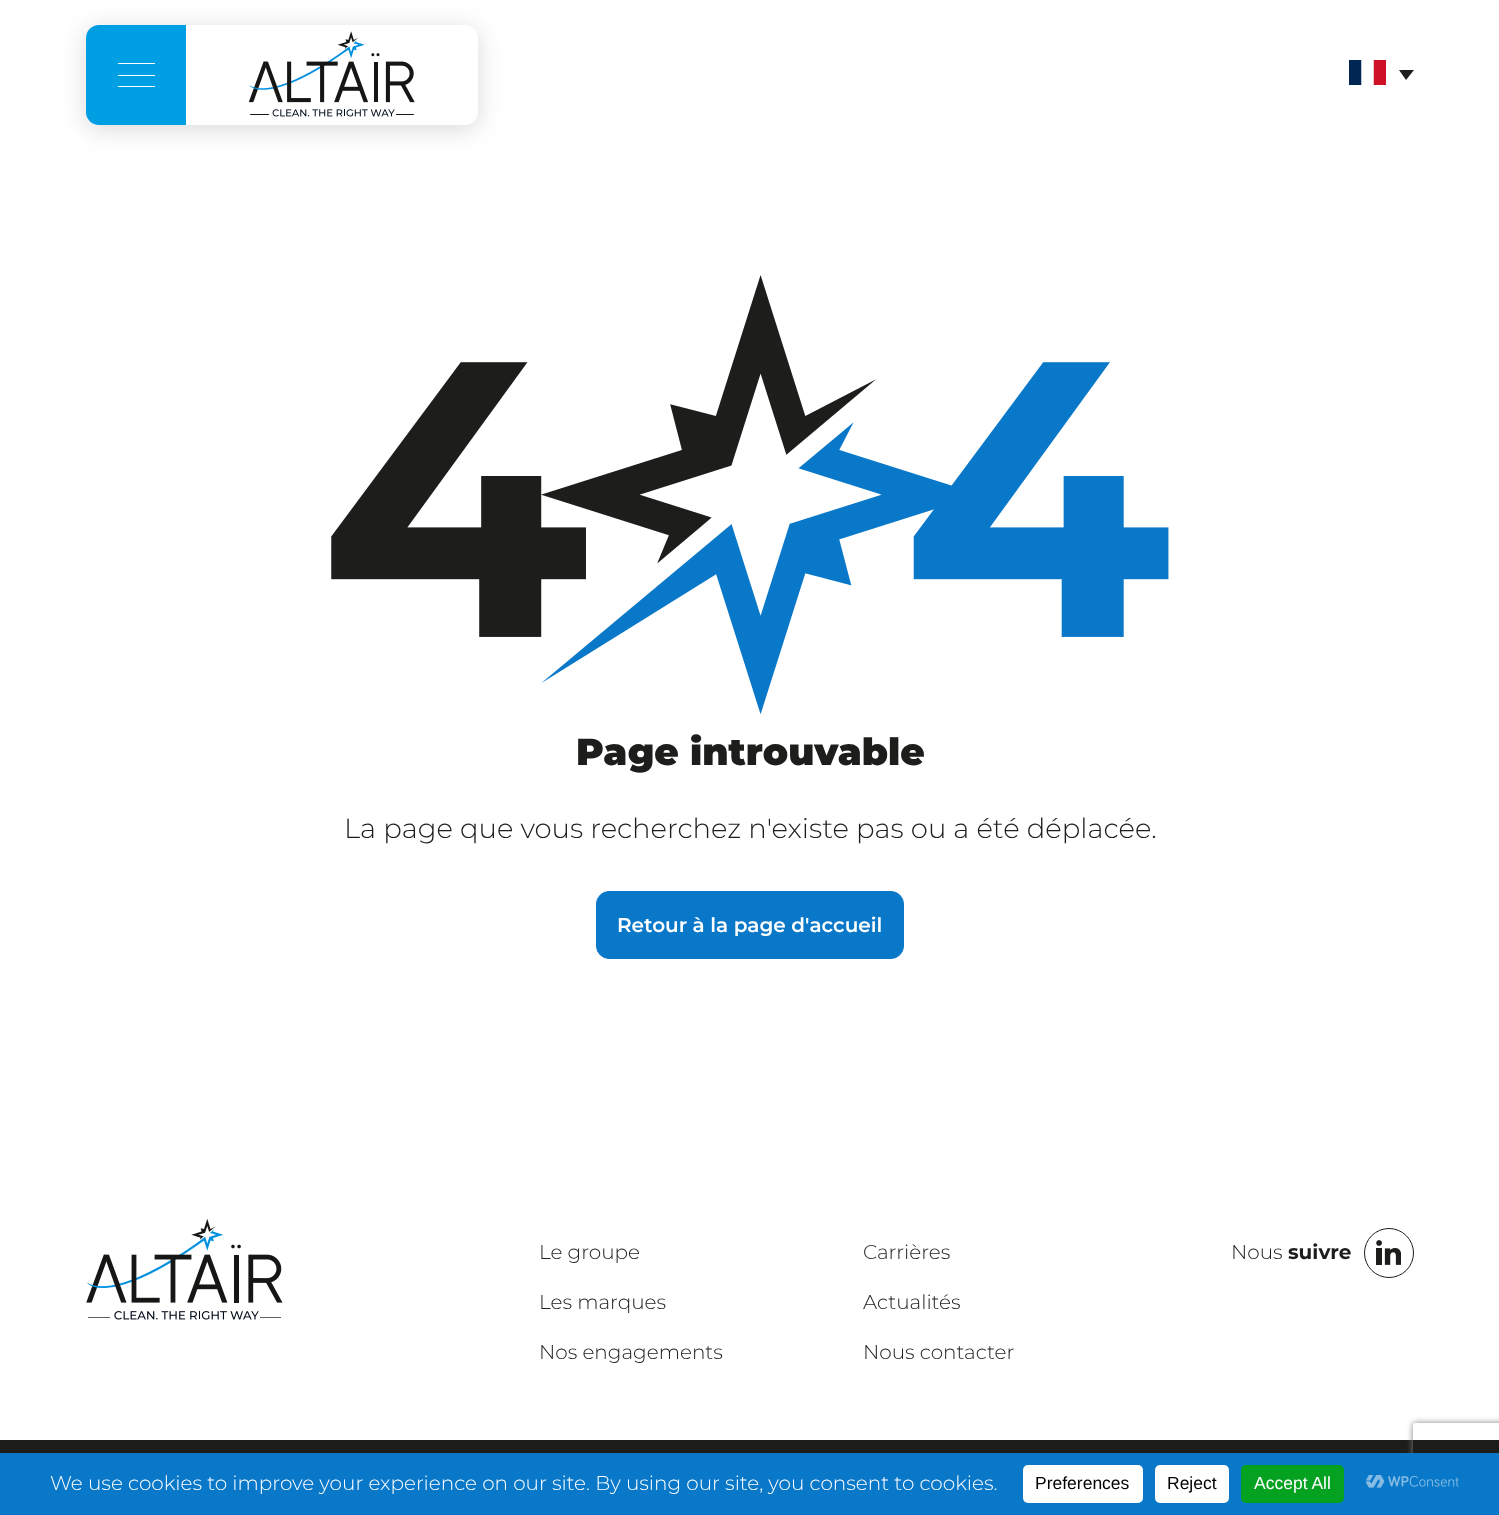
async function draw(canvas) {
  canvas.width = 1499;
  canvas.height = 1515;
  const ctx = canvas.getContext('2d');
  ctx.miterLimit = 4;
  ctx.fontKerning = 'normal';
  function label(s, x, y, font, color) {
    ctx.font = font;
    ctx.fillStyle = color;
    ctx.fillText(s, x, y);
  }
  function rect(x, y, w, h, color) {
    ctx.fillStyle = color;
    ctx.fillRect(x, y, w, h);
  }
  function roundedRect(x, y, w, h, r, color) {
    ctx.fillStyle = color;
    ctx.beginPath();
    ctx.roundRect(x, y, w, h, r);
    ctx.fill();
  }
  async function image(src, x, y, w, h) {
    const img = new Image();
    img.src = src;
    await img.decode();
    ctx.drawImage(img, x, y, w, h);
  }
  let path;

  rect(0, 0, 1499, 1515, '#fff');
  ctx.fillStyle = '#00000026';
  ctx.filter = 'blur(12.5px)';
  ctx.beginPath();
  ctx.roundRect(86, 29, 392, 100, 13);
  ctx.fill();
  ctx.filter = 'none';
  roundedRect(86, 25, 392, 100, 13, '#fff');
  ctx.fillStyle = '#009fe3';
  ctx.beginPath();
  ctx.roundRect(86, 25, 100, 100, [13, 0, 0, 13]);
  ctx.fill();
  rect(118, 63, 37, 1, '#fff');
  rect(118, 75, 37, 1, '#fff');
  rect(118, 86, 37, 1, '#fff');
  await image('assets/img1.png', 249, 31, 166, 86);
  await image('assets/img2.png', 1349, 60, 37, 25);
  ctx.fillStyle = '#1d1d1b';
  path = new Path2D('M1399 70H1414L1406 80Z');
  ctx.fill(path);
  await image('assets/img3.png', 331, 275, 838, 439);
  label('Page introuvable', 576, 765, '900 37.5px Montserrat', '#1d1d1b');
  label('La page que vous recherchez n\'existe pas ou a été déplacée.', 344, 838, '300 27.5px Montserrat', '#1d1d1b');
  ctx.fillStyle = '#0978c9';
  ctx.beginPath();
  ctx.roundRect(596.5, 891.5, 307, 67, 12.5);
  ctx.fill();
  ctx.strokeStyle = '#0978c9';
  ctx.stroke();
  label('Retour à la page d\'accueil', 617, 932, '600 20px Montserrat', '#fff');
  await image('assets/img4.png', 86, 1219, 197, 101);
  label('Le groupe', 539, 1259, '300 20px Montserrat', '#1d1d1b');
  label('Carrières', 863, 1259, '300 20px Montserrat', '#1d1d1b');
  label('Les marques', 539, 1309, '300 20px Montserrat', '#1d1d1b');
  label('Actualités', 863, 1309, '300 20px Montserrat', '#1d1d1b');
  label('Nos engagements', 539, 1359, '300 20px Montserrat', '#1d1d1b');
  label('Nous contacter', 863, 1359, '300 20px Montserrat', '#1d1d1b');
  label('Nous', 1231, 1259, '300 20px Montserrat', '#1d1d1b');
  label('suivre', 1288, 1259, 'bold 20px Montserrat', '#1d1d1b');
  ctx.beginPath();
  ctx.arc(1389, 1253, 24.5, 0, 2 * Math.PI);
  ctx.strokeStyle = '#1d1d1b';
  ctx.stroke();
  await image('assets/img5.png', 1376, 1240, 25, 25);
  rect(0, 1440, 1499, 13, '#1d1d1b');
  ctx.save();
  path = new Path2D('M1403 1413H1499V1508H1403ZM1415.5 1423H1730.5C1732 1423 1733 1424 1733 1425.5V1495.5C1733 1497 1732 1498 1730.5 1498H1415.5C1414 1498 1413 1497 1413 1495.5V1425.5C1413 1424 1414 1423 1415.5 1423Z');
  ctx.clip(path, 'evenodd');
  ctx.fillStyle = '#808080';
  ctx.filter = 'blur(3px)';
  ctx.beginPath();
  ctx.roundRect(1413, 1423, 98, 75, 2.5);
  ctx.fill();
  ctx.filter = 'none';
  ctx.restore();
  rect(0, 1453, 1499, 62, '#0978c9');
  label('We use cookies to improve your experience on our site. By using our site, you consent to cookies.', 50, 1490, '300 20px Montserrat', '#fff');
  roundedRect(1023, 1465, 120, 38, 5, '#fff');
  label('Preferences', 1035, 1489, '17.5px Liberation Sans', '#000');
  roundedRect(1155, 1465, 74, 38, 5, '#fff');
  label('Reject', 1167, 1489, '17.5px Liberation Sans', '#000');
  roundedRect(1241, 1465, 103, 38, 5, '#05a121');
  label('Accept All', 1254, 1489, '17.5px Liberation Sans', '#fff');
  await image('assets/img6.png', 1366, 1475, 93, 13);
}

draw(document.querySelector('canvas'));
